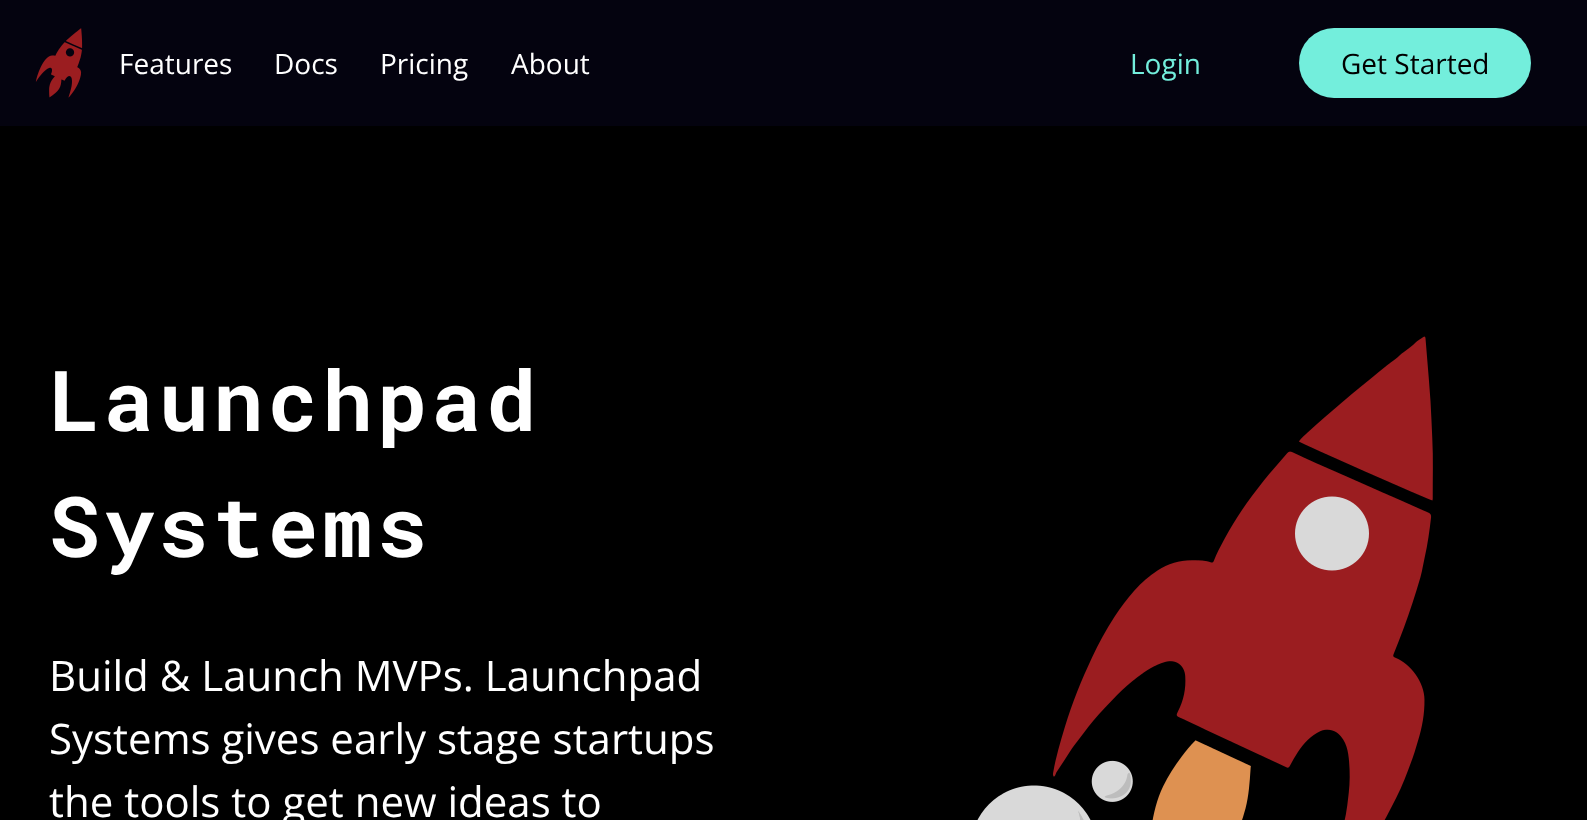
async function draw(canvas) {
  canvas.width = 1587;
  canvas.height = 820;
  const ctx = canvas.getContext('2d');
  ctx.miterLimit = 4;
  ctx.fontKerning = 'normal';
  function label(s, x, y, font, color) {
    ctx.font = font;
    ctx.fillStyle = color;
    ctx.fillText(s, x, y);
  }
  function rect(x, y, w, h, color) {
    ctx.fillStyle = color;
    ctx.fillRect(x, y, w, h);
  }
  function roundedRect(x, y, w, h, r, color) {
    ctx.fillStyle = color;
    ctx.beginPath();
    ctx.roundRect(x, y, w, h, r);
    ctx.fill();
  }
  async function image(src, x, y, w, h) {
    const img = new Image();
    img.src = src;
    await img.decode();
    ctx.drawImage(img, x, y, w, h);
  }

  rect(0, 0, 1587, 820, '#000');
  rect(0, 0, 1587, 126, '#04030f');
  await image('assets/img1.png', 35, 28, 48, 70);
  label('Features', 119, 74, '28px Open Sans', '#fff');
  label('Docs', 274, 74, '28px Open Sans', '#fff');
  label('Pricing', 380, 74, '28px Open Sans', '#fff');
  label('About', 511, 74, '28px Open Sans', '#fff');
  label('Login', 1130, 74, '28px Open Sans', '#73eedc');
  roundedRect(1299, 28, 232, 70, 35, '#73eedc');
  label('Get Started', 1341, 74, '28px Open Sans', '#000');
  ctx.letterSpacing = '4.25px';
  label('Launchpad', 49, 431, 'bold 84px Roboto Mono', '#fff');
  label('Systems', 49, 557, 'bold 84px Roboto Mono', '#fff');
  ctx.letterSpacing = '0px';
  label('Build & Launch MVPs. Launchpad', 49, 691, '42px Open Sans', '#fff');
  label('Systems gives early stage startups', 49, 754, '42px Open Sans', '#fff');
  label('the tools to get new ideas to', 49, 817, '42px Open Sans', '#fff');
  await image('assets/img2.png', 977, 336, 456, 484);
}

draw(document.querySelector('canvas'));
